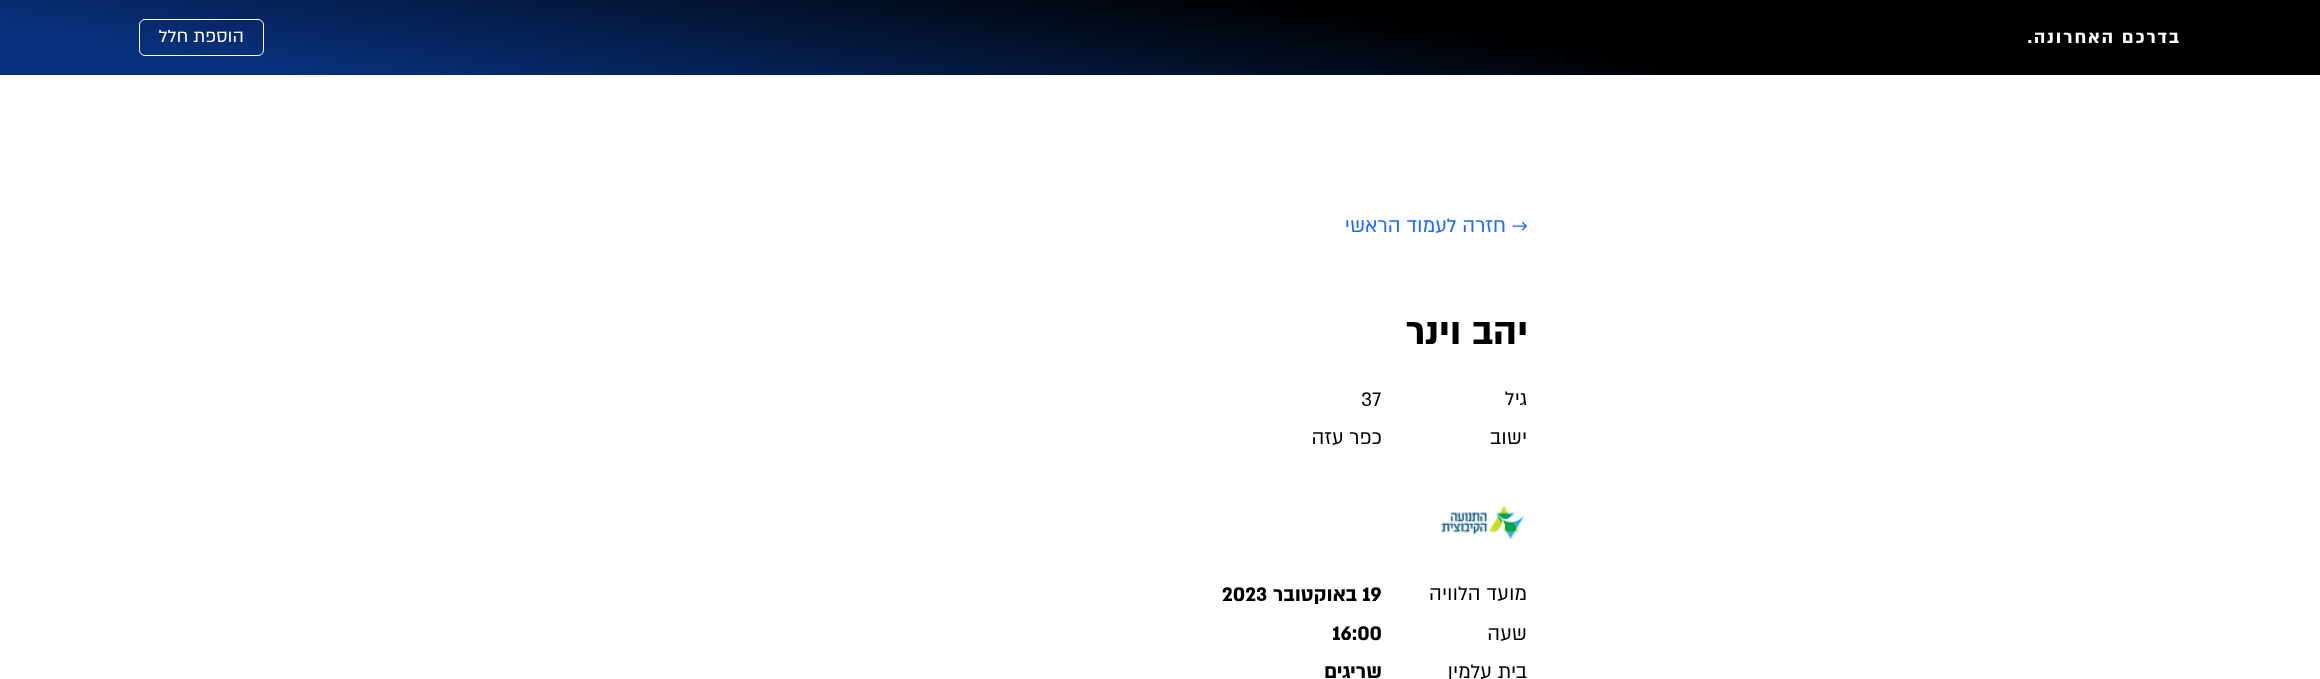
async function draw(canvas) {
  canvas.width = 2320;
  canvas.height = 679;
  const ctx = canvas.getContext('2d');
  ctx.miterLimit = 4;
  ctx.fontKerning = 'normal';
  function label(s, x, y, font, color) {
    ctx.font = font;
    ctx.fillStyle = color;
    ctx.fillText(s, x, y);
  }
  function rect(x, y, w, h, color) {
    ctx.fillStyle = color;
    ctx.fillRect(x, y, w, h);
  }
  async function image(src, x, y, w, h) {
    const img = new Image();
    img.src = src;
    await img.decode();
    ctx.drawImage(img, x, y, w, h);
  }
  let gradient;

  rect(0, 0, 2320, 679, '#fff');
  gradient = ctx.createLinearGradient(1126, 253, 1194, -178);
  gradient.addColorStop(0.11, '#08317d');
  gradient.addColorStop(0.62, '#000');
  ctx.fillStyle = gradient;
  ctx.fillRect(0, 0, 2320, 75);
  ctx.letterSpacing = '2px';
  ctx.direction = 'rtl';
  label('בדרכם האחרונה.', 2181, 43, 'bold 20px "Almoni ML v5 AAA"', '#fff');
  ctx.beginPath();
  ctx.roundRect(139.5, 19.5, 124, 36, 5.5);
  ctx.strokeStyle = '#fff';
  ctx.stroke();
  ctx.letterSpacing = '0px';
  label('הוספת חלל', 244, 42, '20px "Almoni ML v5 AAA"', '#fff');
  label('→ חזרה לעמוד הראשי', 1528, 232, '22.5px "Almoni ML v5 AAA"', '#1a6aff');
  label('יהב וינר', 1528, 344, 'bold 42.5px "Almoni ML v5 AAA"', '#000');
  label('גיל', 1527, 405, '22.5px "Almoni ML v5 AAA"', '#000');
  ctx.direction = 'ltr';
  label('37', 1361, 406, '22.5px "Almoni ML v5 AAA"', '#000');
  ctx.direction = 'rtl';
  label('ישוב', 1527, 444, '22.5px "Almoni ML v5 AAA"', '#000');
  label('כפר עזה', 1382, 444, '22.5px "Almoni ML v5 AAA"', '#000');
  await image('assets/img1.png', 1441, 506, 84, 33);
  label('מועד הלוויה', 1527, 600, '22.5px "Almoni ML v5 AAA"', '#000');
  ctx.direction = 'ltr';
  label('19', 1362, 601, 'bold 22.5px "Almoni ML v5 AAA"', '#000');
  ctx.direction = 'rtl';
  label('באוקטובר', 1357, 601, 'bold 22.5px "Almoni ML v5 AAA"', '#000');
  ctx.direction = 'ltr';
  label('2023', 1222, 601, 'bold 22.5px "Almoni ML v5 AAA"', '#000');
  ctx.direction = 'rtl';
  label('שעה', 1527, 640, '22.5px "Almoni ML v5 AAA"', '#000');
  ctx.direction = 'ltr';
  label('16:00', 1332, 640, 'bold 22.5px "Almoni ML v5 AAA"', '#000');
  ctx.direction = 'rtl';
  label('בית עלמין', 1527, 678, '22.5px "Almoni ML v5 AAA"', '#000');
  label('שריגים', 1382, 678, 'bold 22.5px "Almoni ML v5 AAA"', '#000');
}

draw(document.querySelector('canvas'));
